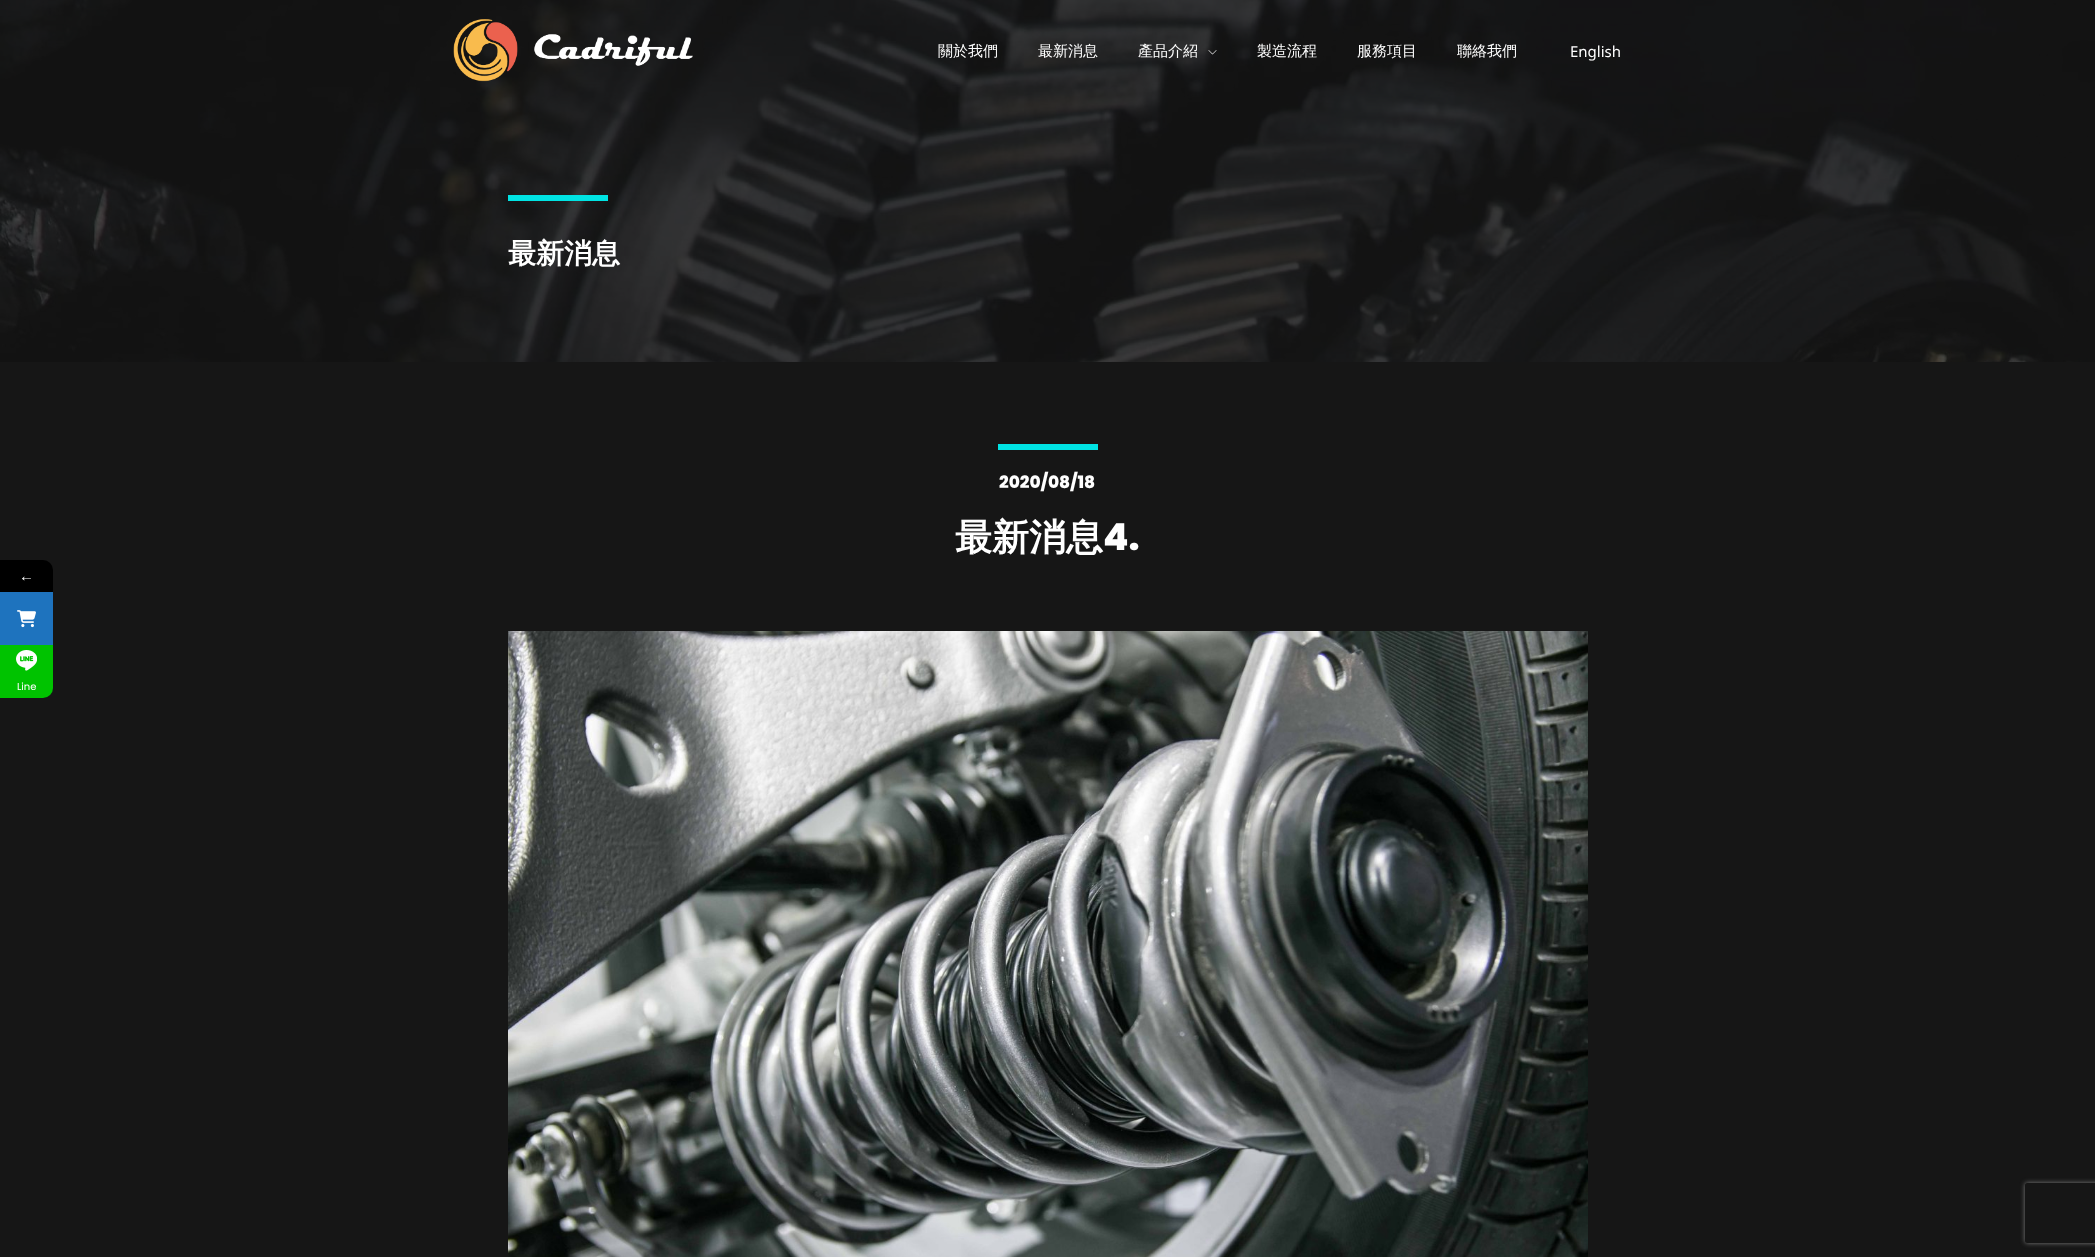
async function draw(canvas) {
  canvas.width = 2095;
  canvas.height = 1257;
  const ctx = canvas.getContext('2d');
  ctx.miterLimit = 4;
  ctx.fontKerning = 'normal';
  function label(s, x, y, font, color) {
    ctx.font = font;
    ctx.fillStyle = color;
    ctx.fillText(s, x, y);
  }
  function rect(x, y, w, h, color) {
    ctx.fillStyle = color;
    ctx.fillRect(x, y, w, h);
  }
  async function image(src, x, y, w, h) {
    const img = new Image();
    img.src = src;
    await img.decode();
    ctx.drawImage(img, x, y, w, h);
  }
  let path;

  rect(0, 0, 2095, 1257, '#fff');
  await image('assets/img3.png', 0, 0, 2095, 362);
  await image('assets/img1.png', 453, 19, 240, 63);
  label('關於我們', 938, 56, '500 15px WenQuanYi Zen Hei', '#fff');
  label('最新消息', 1038, 56, '500 15px WenQuanYi Zen Hei', '#fff');
  label('產品介紹', 1138, 56, '500 15px WenQuanYi Zen Hei', '#fff');
  await image('assets/img2.png', 1208, 50, 9, 5);
  label('製造流程', 1257, 56, '500 15px WenQuanYi Zen Hei', '#fff');
  label('服務項目', 1357, 56, '500 15px WenQuanYi Zen Hei', '#fff');
  label('聯絡我們', 1457, 56, '500 15px WenQuanYi Zen Hei', '#fff');
  label('English', 1570, 57, '15px Noto Sans', '#fff');
  rect(508, 195, 100, 6, '#00e3e3');
  label('最新消息', 508, 263, 'bold 28px WenQuanYi Zen Hei', '#fff');
  rect(0, 362, 2095, 895, '#161616');
  rect(998, 444, 100, 6, '#00e3e3');
  label('2020/08/18', 999, 488, '800 17px Poppins', '#fff');
  label('最新消息', 955, 550, 'bold 37px WenQuanYi Zen Hei', '#fff');
  label('4.', 1103, 550, '800 37px Poppins', '#fff');
  await image('assets/img4.png', 508, 631, 1080, 626);
  ctx.fillStyle = '#000';
  ctx.beginPath();
  ctx.roundRect(0, 560, 53, 32, [0, 10, 0, 0]);
  ctx.fill();
  label('←', 19, 581, '15px Liberation Serif', '#fff');
  rect(0, 592, 53, 53, '#1e73be');
  await image('assets/img5.png', 17, 610, 19, 18);
  ctx.fillStyle = '#00c300';
  ctx.beginPath();
  ctx.roundRect(0, 645, 53, 53, [0, 0, 10, 0]);
  ctx.fill();
  await image('assets/img6.png', 16, 650, 21, 21);
  label('Line', 17, 690, '10px Poppins', '#fff');
  ctx.save();
  path = new Path2D('M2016 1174H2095V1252H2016ZM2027 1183H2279C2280 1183 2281 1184 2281 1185V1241C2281 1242 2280 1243 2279 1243H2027C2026 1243 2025 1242 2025 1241V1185C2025 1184 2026 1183 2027 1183Z');
  ctx.clip(path, 'evenodd');
  ctx.fillStyle = '#808080';
  ctx.filter = 'blur(2.5px)';
  ctx.beginPath();
  ctx.roundRect(2025, 1183, 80, 60, 2);
  ctx.fill();
  ctx.filter = 'none';
  ctx.restore();
}

draw(document.querySelector('canvas'));
